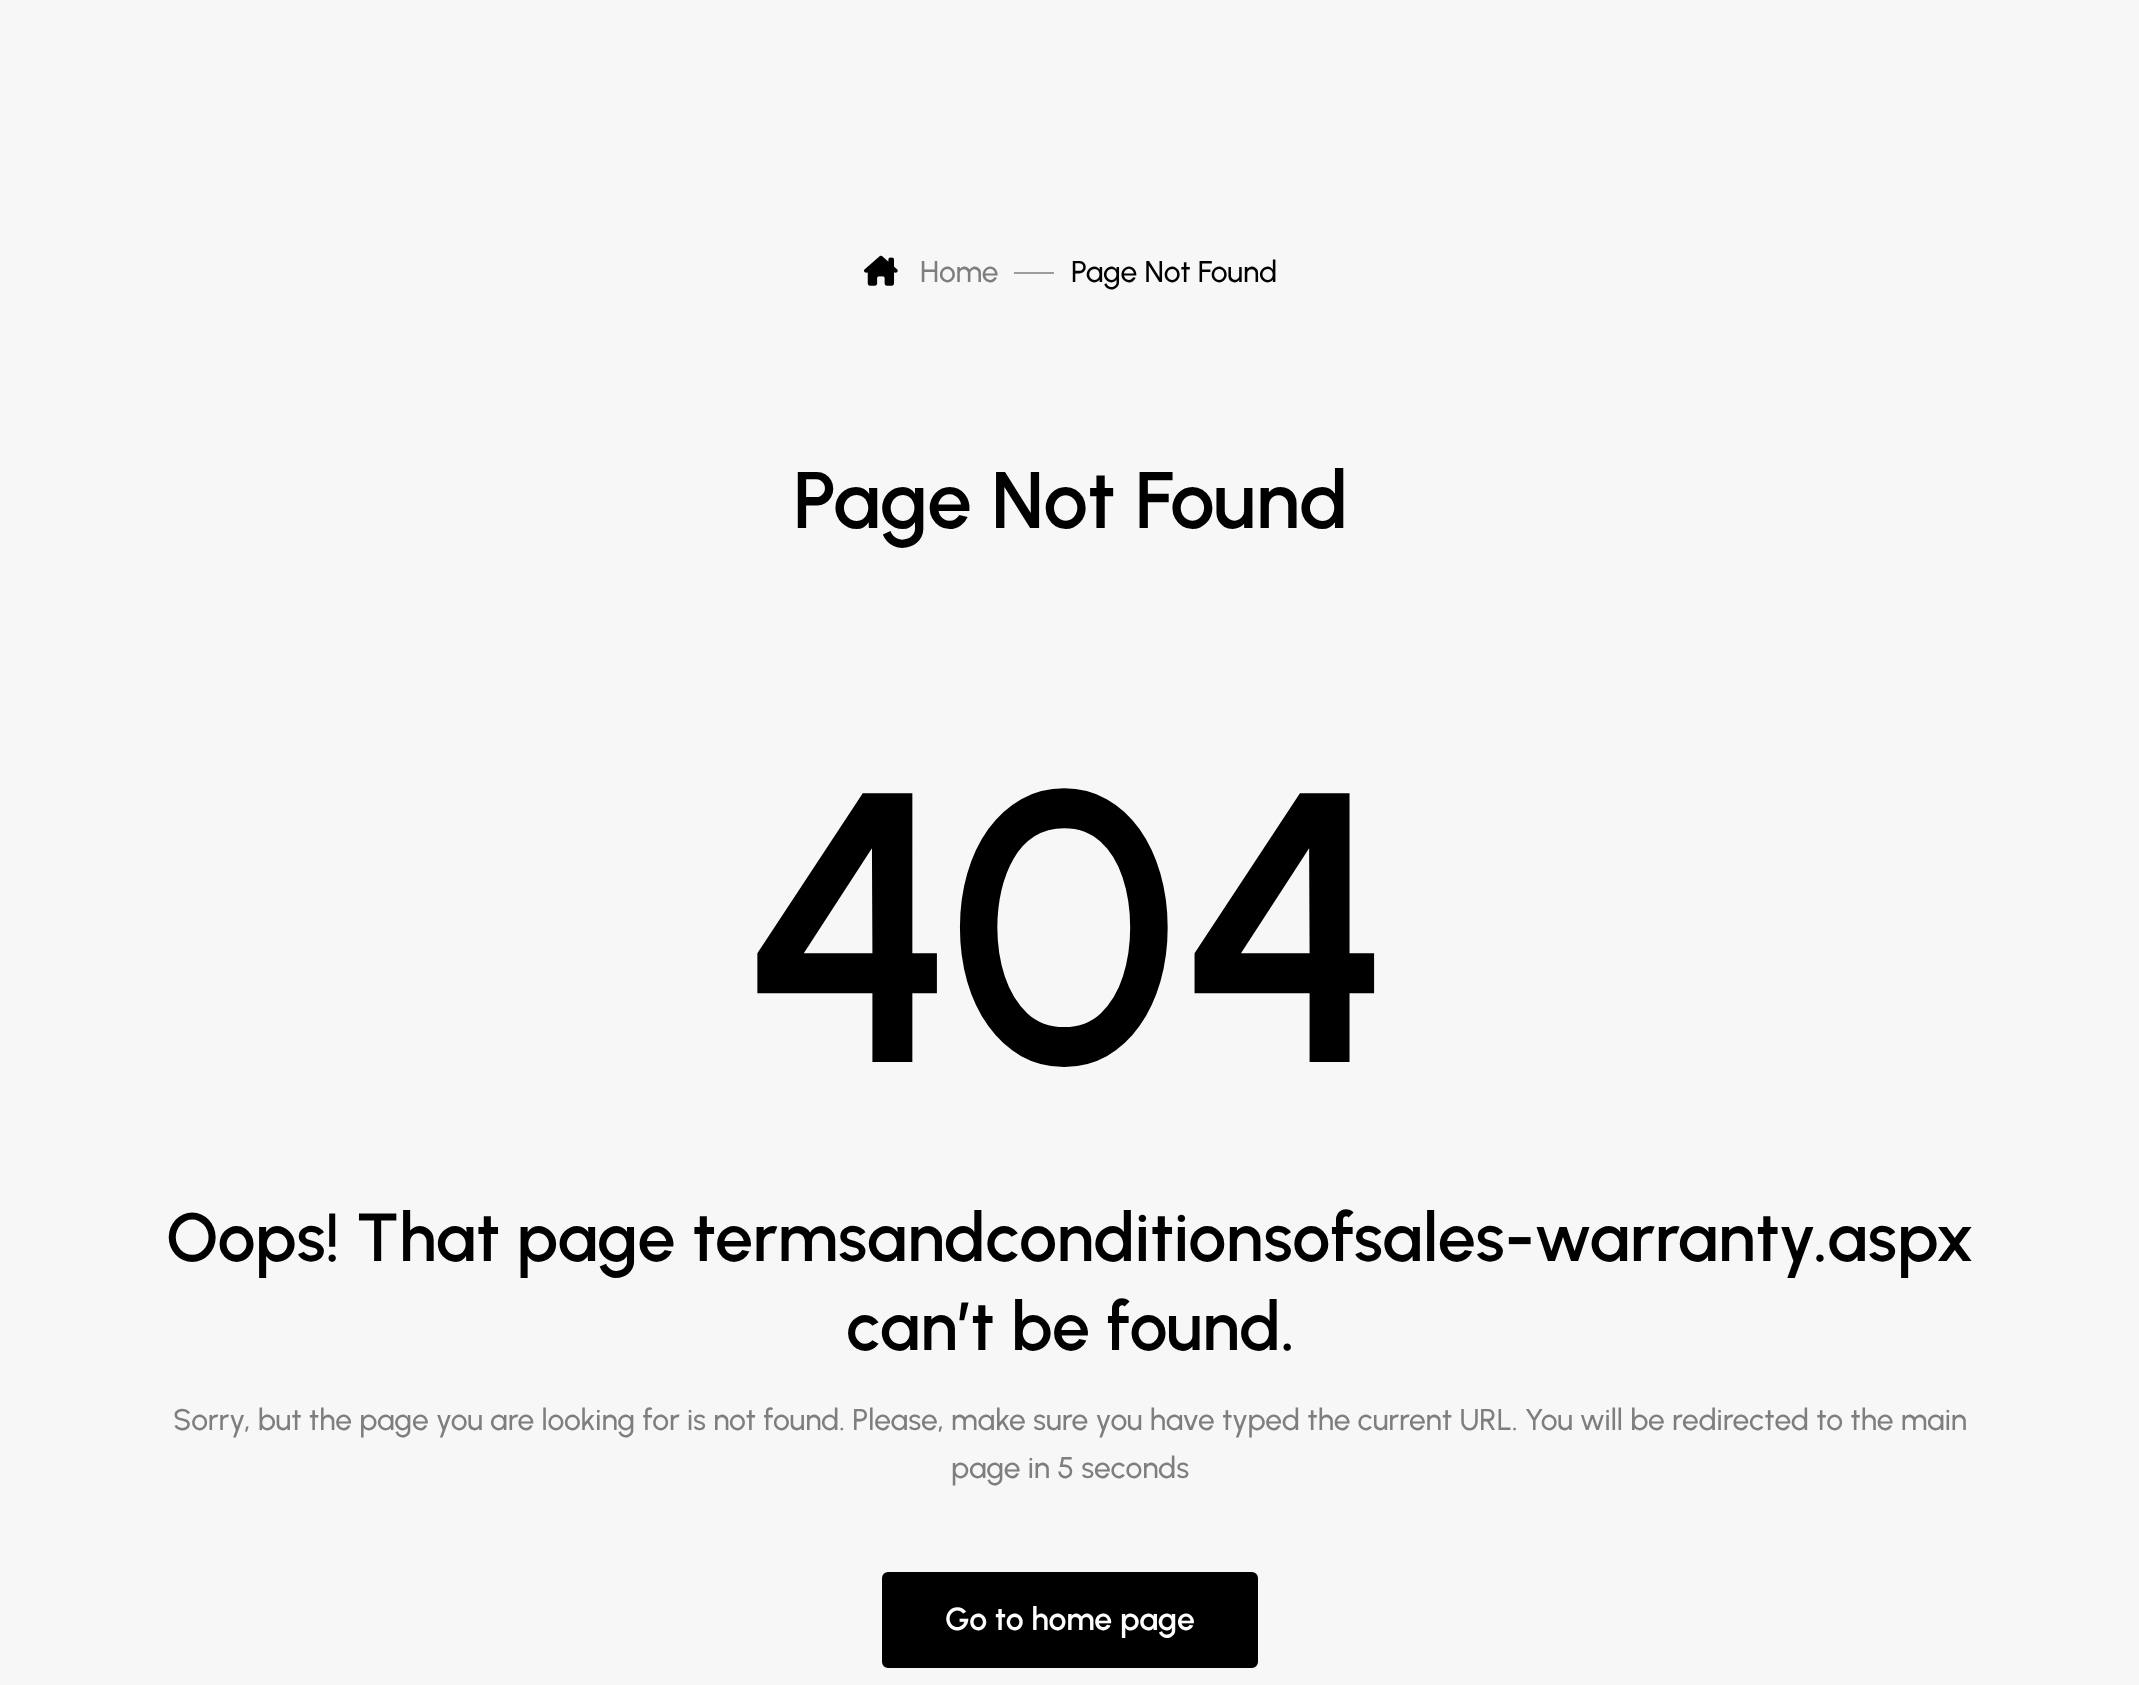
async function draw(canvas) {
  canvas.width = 2139;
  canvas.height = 1685;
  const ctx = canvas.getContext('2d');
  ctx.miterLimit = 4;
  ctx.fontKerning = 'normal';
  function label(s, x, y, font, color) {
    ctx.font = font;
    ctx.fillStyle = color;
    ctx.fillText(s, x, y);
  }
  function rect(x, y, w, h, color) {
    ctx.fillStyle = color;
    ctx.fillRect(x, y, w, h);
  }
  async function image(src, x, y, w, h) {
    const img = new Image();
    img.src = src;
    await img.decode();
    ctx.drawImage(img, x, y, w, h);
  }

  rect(0, 0, 2139, 1685, '#f7f7f7');
  await image('assets/img1.png', 864, 255, 34, 31);
  label('Home', 920, 282, '500 30px Urbanist', '#7e7e7e');
  rect(1014, 272, 40, 2, '#9c9c9c');
  label('Page Not Found', 1071, 282, '500 30px Urbanist', '#000');
  label('Page Not Found', 793, 528, '600 80px Urbanist', '#000');
  label('404', 742, 1062, '600 384px Urbanist', '#000');
  label('Oops! That page termsandconditionsofsales-warranty.aspx', 166, 1261, '600 68px Urbanist', '#000');
  label('can’t be found.', 846, 1350, '600 68px Urbanist', '#000');
  label('Sorry, but the page you are looking for is not found. Please, make sure you have typed the current URL. You will be redirected to the main', 173, 1430, '500 30px Urbanist', '#7e7e7e');
  label('page in 5 seconds', 951, 1478, '500 30px Urbanist', '#7e7e7e');
  ctx.fillStyle = '#000';
  ctx.beginPath();
  ctx.roundRect(884, 1574, 372, 92, 4);
  ctx.fill();
  ctx.strokeStyle = '#000';
  ctx.lineWidth = 4;
  ctx.stroke();
  label('Go to home page', 945, 1630, '600 32px Urbanist', '#fff');
}

draw(document.querySelector('canvas'));
